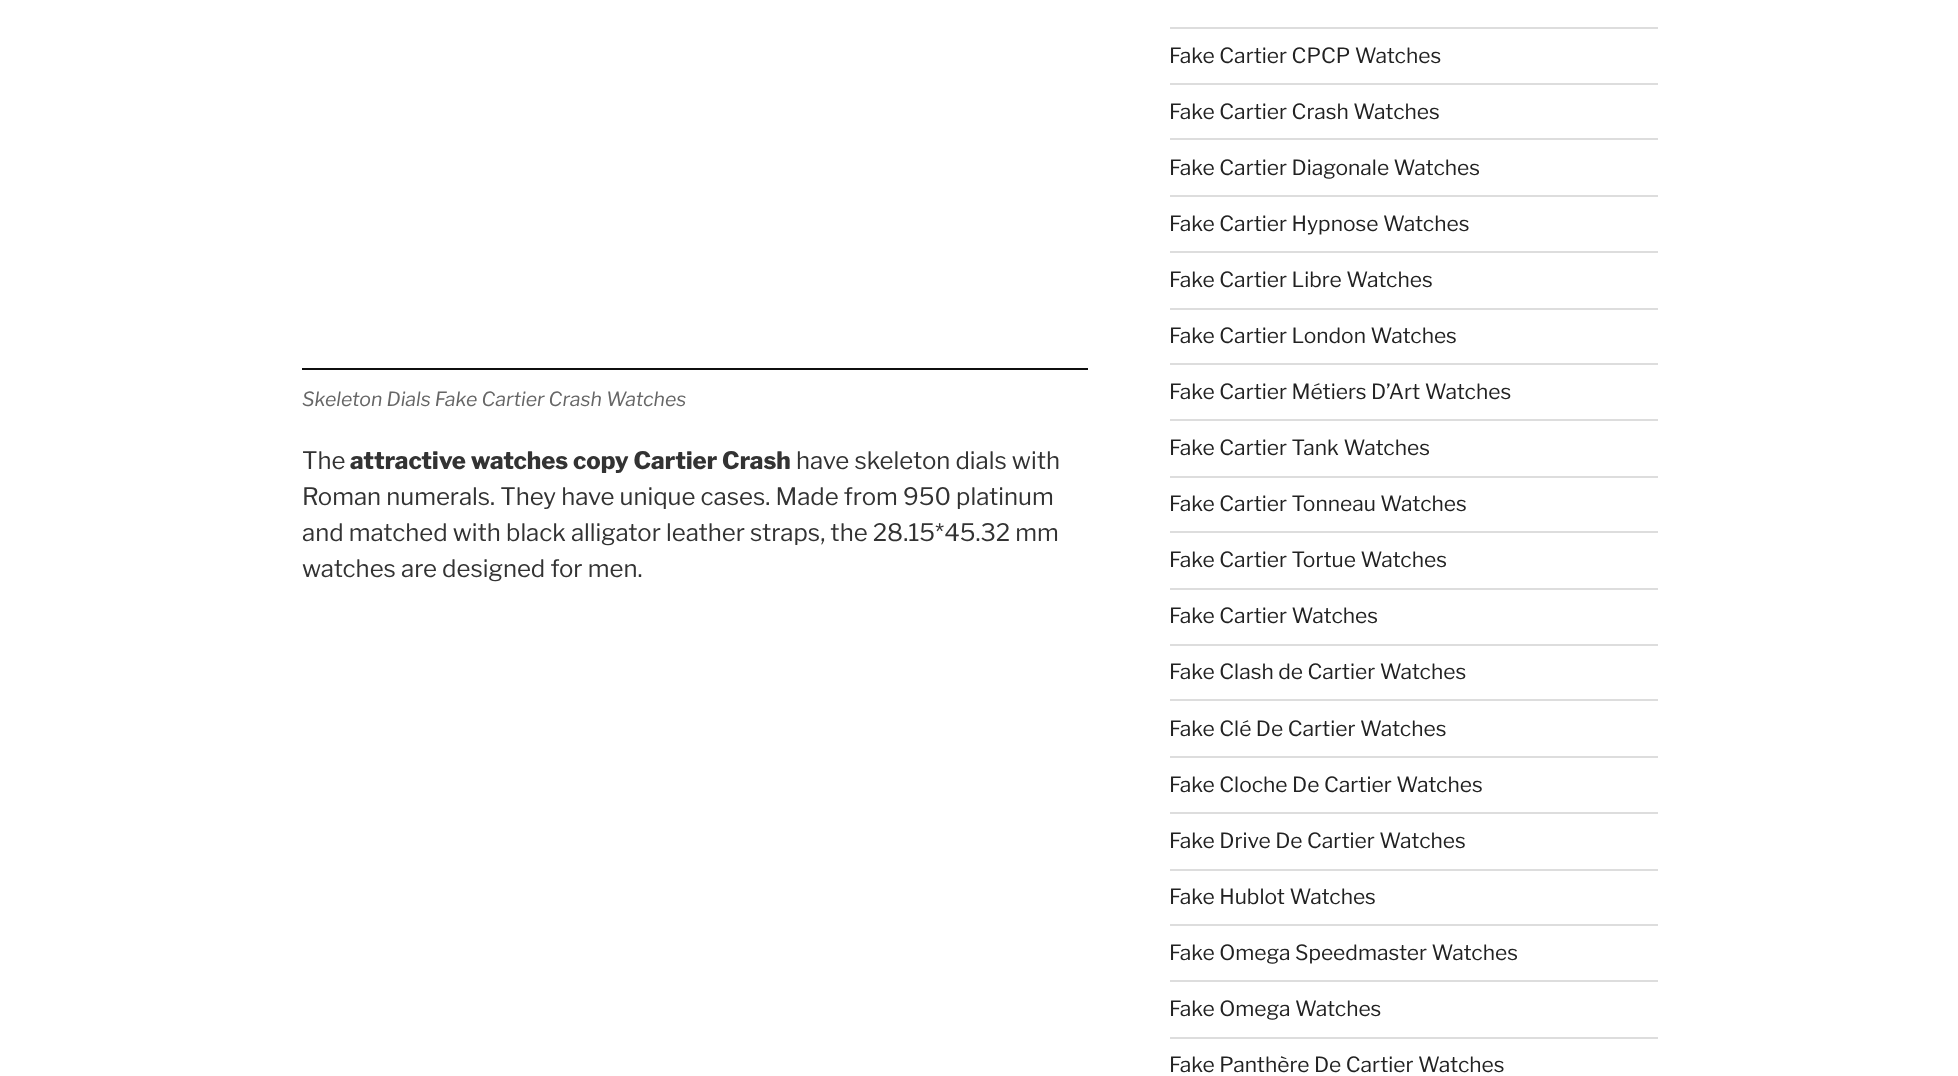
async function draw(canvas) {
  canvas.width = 1958;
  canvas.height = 1076;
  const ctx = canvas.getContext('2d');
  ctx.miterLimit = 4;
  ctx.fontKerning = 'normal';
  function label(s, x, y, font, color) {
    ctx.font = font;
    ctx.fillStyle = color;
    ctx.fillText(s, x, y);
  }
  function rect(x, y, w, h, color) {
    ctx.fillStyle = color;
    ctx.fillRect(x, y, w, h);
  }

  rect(0, 0, 1958, 1076, '#fff');
  rect(302, 368, 786, 2, '#0f0f0f');
  label('Skeleton Dials Fake Cartier Crash Watches', 302, 406, 'italic 19.5px Libre Franklin', '#666');
  label('The', 302, 469, '24px Libre Franklin', '#333');
  label('attractive watches copy Cartier Crash', 350, 469, '800 24px Libre Franklin', '#333');
  label('have skeleton dials with', 796, 469, '24px Libre Franklin', '#333');
  label('Roman numerals. They have unique cases. Made from 950 platinum', 302, 505, '24px Libre Franklin', '#333');
  label('and matched with black alligator leather straps, the 28.15*45.32 mm', 302, 541, '24px Libre Franklin', '#333');
  label('watches are designed for men.', 302, 577, '24px Libre Franklin', '#333');
  rect(1170, 27, 488, 2, '#ddd');
  rect(1170, 83, 488, 2, '#ddd');
  label('Fake Cartier CPCP Watches', 1169, 63, '21px Libre Franklin', '#222');
  rect(1170, 138, 488, 2, '#ddd');
  label('Fake Cartier Crash Watches', 1169, 119, '21px Libre Franklin', '#222');
  rect(1170, 195, 488, 2, '#ddd');
  label('Fake Cartier Diagonale Watches', 1169, 175, '21px Libre Franklin', '#222');
  rect(1170, 251, 488, 2, '#ddd');
  label('Fake Cartier Hypnose Watches', 1169, 231, '21px Libre Franklin', '#222');
  rect(1170, 308, 488, 2, '#ddd');
  label('Fake Cartier Libre Watches', 1169, 287, '21px Libre Franklin', '#222');
  rect(1170, 363, 488, 2, '#ddd');
  label('Fake Cartier London Watches', 1169, 343, '21px Libre Franklin', '#222');
  rect(1170, 419, 488, 2, '#ddd');
  label('Fake Cartier Métiers D’Art Watches', 1169, 399, '21px Libre Franklin', '#222');
  rect(1170, 476, 488, 2, '#ddd');
  label('Fake Cartier Tank Watches', 1169, 455, '21px Libre Franklin', '#222');
  rect(1170, 531, 488, 2, '#ddd');
  label('Fake Cartier Tonneau Watches', 1169, 511, '21px Libre Franklin', '#222');
  rect(1170, 588, 488, 2, '#ddd');
  label('Fake Cartier Tortue Watches', 1169, 567, '21px Libre Franklin', '#222');
  rect(1170, 644, 488, 2, '#ddd');
  label('Fake Cartier Watches', 1169, 623, '21px Libre Franklin', '#222');
  rect(1170, 699, 488, 2, '#ddd');
  label('Fake Clash de Cartier Watches', 1169, 679, '21px Libre Franklin', '#222');
  rect(1170, 756, 488, 2, '#ddd');
  label('Fake Clé De Cartier Watches', 1169, 736, '21px Libre Franklin', '#222');
  rect(1170, 812, 488, 2, '#ddd');
  label('Fake Cloche De Cartier Watches', 1169, 792, '21px Libre Franklin', '#222');
  rect(1170, 869, 488, 2, '#ddd');
  label('Fake Drive De Cartier Watches', 1169, 848, '21px Libre Franklin', '#222');
  rect(1170, 924, 488, 2, '#ddd');
  label('Fake Hublot Watches', 1169, 904, '21px Libre Franklin', '#222');
  rect(1170, 980, 488, 2, '#ddd');
  label('Fake Omega Speedmaster Watches', 1169, 960, '21px Libre Franklin', '#222');
  rect(1170, 1037, 488, 2, '#ddd');
  label('Fake Omega Watches', 1169, 1016, '21px Libre Franklin', '#222');
  label('Fake Panthère De Cartier Watches', 1169, 1072, '21px Libre Franklin', '#222');
}

draw(document.querySelector('canvas'));
